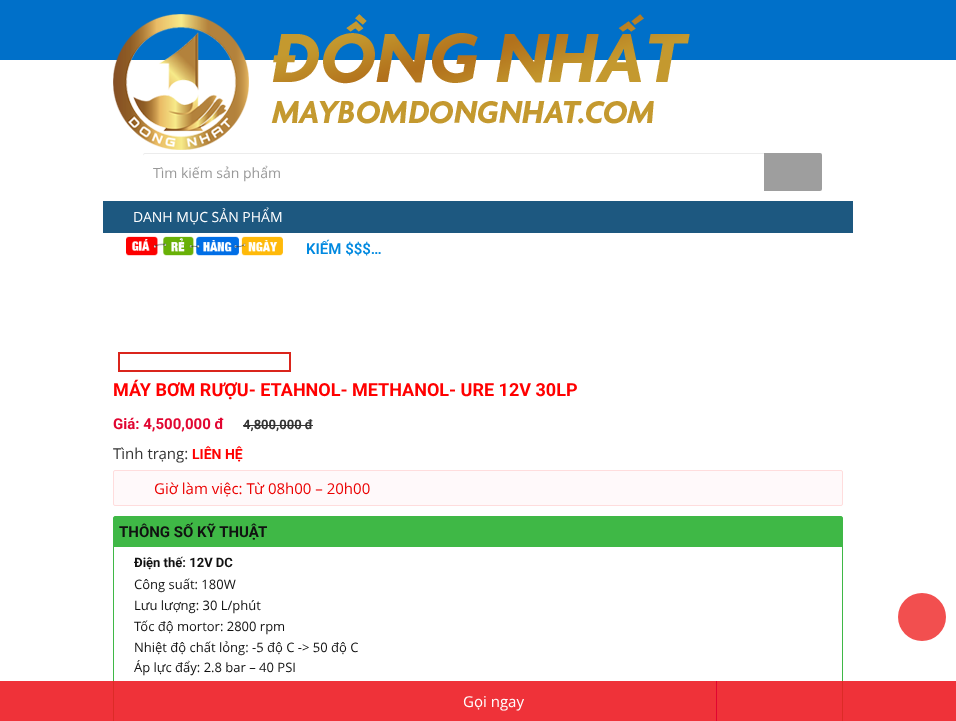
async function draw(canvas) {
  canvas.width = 956;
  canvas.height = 721;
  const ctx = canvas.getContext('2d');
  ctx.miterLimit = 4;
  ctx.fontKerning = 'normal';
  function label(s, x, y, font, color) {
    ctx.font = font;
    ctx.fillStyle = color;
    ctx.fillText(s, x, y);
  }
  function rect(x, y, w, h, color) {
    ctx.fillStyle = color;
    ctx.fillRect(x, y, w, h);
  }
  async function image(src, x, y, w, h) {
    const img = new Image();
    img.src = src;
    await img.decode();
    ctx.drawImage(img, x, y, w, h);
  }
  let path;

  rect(0, 0, 956, 721, '#fff');
  rect(0, 0, 956, 60, '#0070c9');
  await image('assets/img1.png', 113, 14, 577, 136);
  ctx.fillStyle = '#ececec';
  path = new Path2D('M145 154H820C821 154 822 155 822 156C822 155 822 153 820 153H145C143 153 143 155 143 156C143 155 144 154 145 154Z');
  ctx.fill(path);
  label('Tìm kiếm sản phẩm', 153, 178, '14px Open Sans', '#999');
  ctx.fillStyle = '#9e9e9e';
  ctx.beginPath();
  ctx.roundRect(764, 153, 58, 38, [0, 2, 2, 0]);
  ctx.fill();
  rect(103, 201, 750, 32, '#1d5880');
  label('DANH MỤC SẢN PHẨM', 133, 222, '14px Open Sans', '#fff');
  await image('assets/img2.png', 126, 236, 157, 20);
  label('KIẾM $$$…', 306, 254, '600 15px Roboto', '#0089e0');
  ctx.strokeStyle = '#da251c';
  ctx.lineWidth = 2;
  ctx.strokeRect(119, 353, 171, 18);
  label('MÁY BƠM RƯỢU- ETAHNOL- METHANOL- URE 12V 30LP', 113, 396, 'bold 18px Roboto', '#f00');
  label('Giá: 4,500,000 đ', 113, 429, 'bold 15px Roboto', '#e10531');
  label('4,800,000 đ', 243, 429, 'bold 13px Roboto', '#333');
  rect(243, 425, 70, 1, '#333');
  label('Tình trạng:', 113, 459, '15px Open Sans', '#333');
  label('LIÊN HỆ', 192, 459, 'bold 14px Roboto', '#f00');
  ctx.fillStyle = '#fff9fa';
  ctx.beginPath();
  ctx.roundRect(113.5, 470.5, 729, 35, 1.5);
  ctx.fill();
  ctx.strokeStyle = '#fdd';
  ctx.lineWidth = 1;
  ctx.stroke();
  label('Giờ làm việc: Từ 08h00 – 20h00', 154, 494, '15px Open Sans', '#eb0000');
  ctx.beginPath();
  ctx.roundRect(113.5, 516.5, 729, 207, 1.5);
  ctx.strokeStyle = '#3fb846';
  ctx.stroke();
  rect(114, 517, 728, 30, '#3fb846');
  label('THÔNG SỐ KỸ THUẬT', 119, 537, 'bold 15px Roboto', '#111');
  label('Điện thế: 12V DC', 134, 567, 'bold 13px Roboto', '#111');
  label('Công suất: 180W', 134, 589, '13px Open Sans', '#111');
  label('Lưu lượng: 30 L/phút', 134, 610, '13px Open Sans', '#111');
  label('Tốc độ mortor: 2800 rpm', 134, 631, '13px Open Sans', '#111');
  label('Nhiệt độ chất lỏng: -5 độ C -> 50 độ C', 134, 652, '13px Open Sans', '#111');
  label('Áp lực đẩy: 2.8 bar – 40 PSI', 134, 672, '13px Open Sans', '#111');
  ctx.fillStyle = '#f24f4f';
  ctx.beginPath();
  ctx.arc(922, 617, 24, 0, 2 * Math.PI);
  ctx.fill();
  rect(0, 681, 956, 40, '#ed1c24e6');
  rect(716, 681, 1, 40, '#e10531');
  label('Gọi ngay', 463, 707, '15px Open Sans', '#fff');
}

draw(document.querySelector('canvas'));
